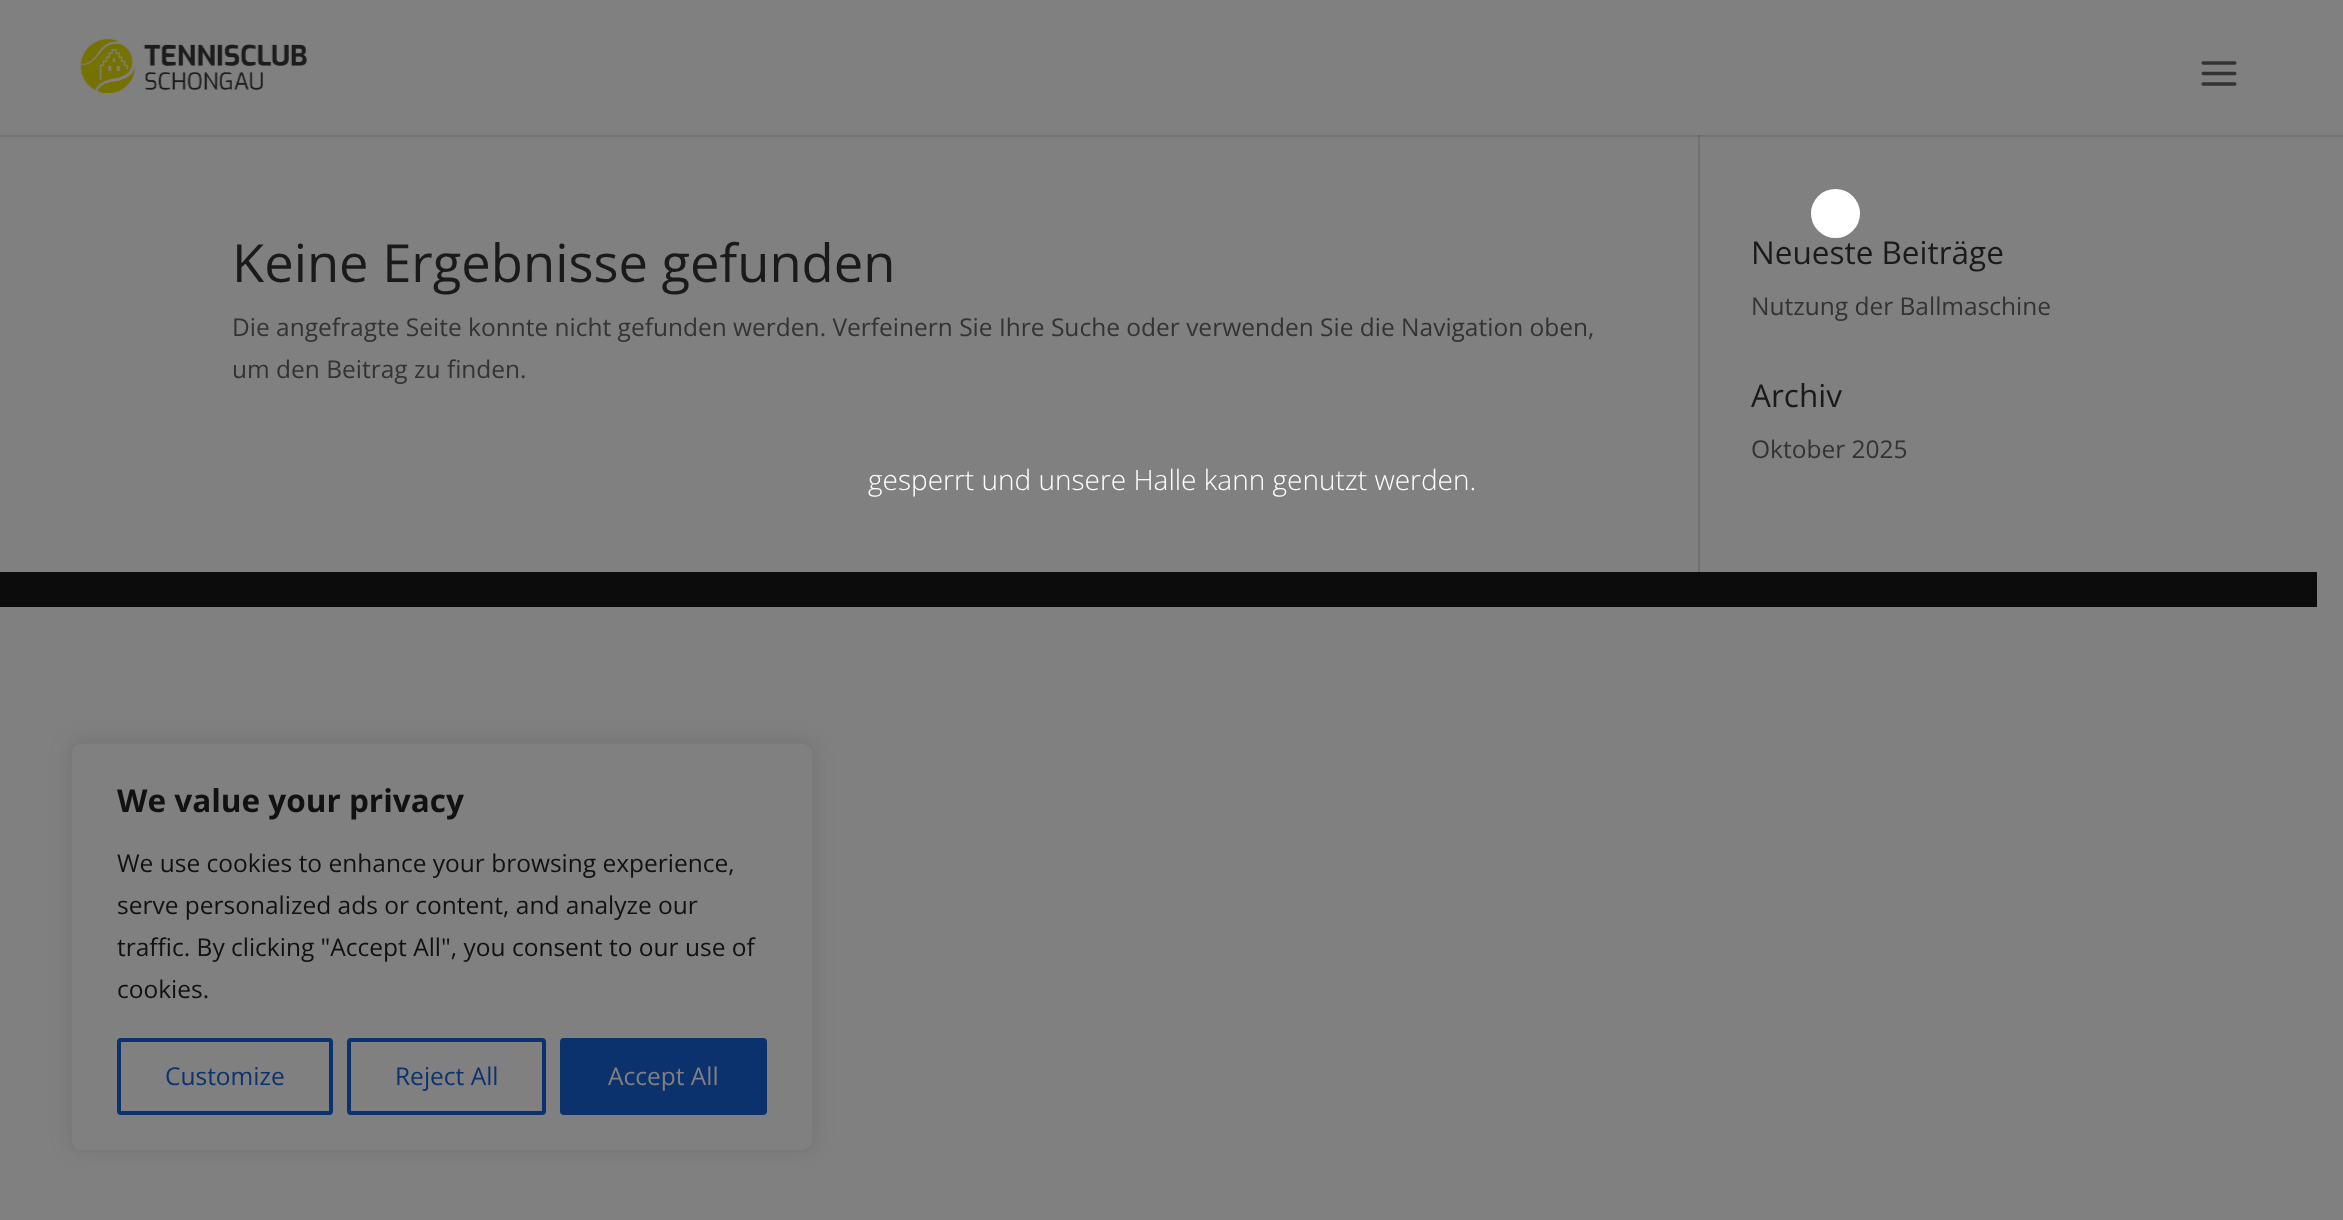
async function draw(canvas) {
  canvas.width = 2343;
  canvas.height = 1220;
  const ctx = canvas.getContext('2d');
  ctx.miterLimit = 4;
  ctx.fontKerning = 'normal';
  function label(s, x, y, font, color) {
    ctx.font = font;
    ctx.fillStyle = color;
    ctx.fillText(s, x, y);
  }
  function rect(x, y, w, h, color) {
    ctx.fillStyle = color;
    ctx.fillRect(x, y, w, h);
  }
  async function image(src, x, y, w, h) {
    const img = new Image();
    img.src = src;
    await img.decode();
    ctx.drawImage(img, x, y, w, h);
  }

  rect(0, 0, 2343, 1220, '#808080');
  rect(0, 135, 2343, 2, '#737373');
  await image('assets/img1.png', 80, 38, 227, 55);
  await image('assets/img2.png', 2201, 61, 36, 25);
  rect(1698, 135, 2, 437, '#717171');
  rect(1698, 135, 2, 2, '#666');
  label('Keine Ergebnisse gefunden', 232, 282, '52.5px Open Sans', '#1a1a1a');
  label('Die angefragte Seite konnte nicht gefunden werden. Verfeinern Sie Ihre Suche oder verwenden Sie die Navigation oben,', 232, 336, '24.5px Open Sans', '#333');
  label('um den Beitrag zu finden.', 232, 378, '24.5px Open Sans', '#333');
  label('Neueste Beiträge', 1751, 264, '31.5px Open Sans', '#1a1a1a');
  label('Nutzung der Ballmaschine', 1751, 315, '24.5px Open Sans', '#333');
  label('Archiv', 1751, 407, '31.5px Open Sans', '#1a1a1a');
  label('Oktober 2025', 1751, 458, '24.5px Open Sans', '#333');
  rect(0, 572, 2317, 35, '#0c0c0c');
  ctx.fillStyle = '#fff';
  ctx.beginPath();
  ctx.arc(1835.5, 213.5, 24.5, 0, 2 * Math.PI);
  ctx.fill();
  label('gesperrt und unsere Halle kann genutzt werden.', 868, 490, '300 28px Open Sans', '#fff');
  ctx.fillStyle = '#5656564d';
  ctx.filter = 'blur(9px)';
  ctx.beginPath();
  ctx.roundRect(70, 740, 744, 410, 11);
  ctx.fill();
  ctx.filter = 'none';
  ctx.fillStyle = '#808080';
  ctx.beginPath();
  ctx.roundRect(71, 743, 742, 408, 10);
  ctx.fill();
  ctx.strokeStyle = '#7a7a7a';
  ctx.lineWidth = 2;
  ctx.stroke();
  label('We value your privacy', 117, 812, 'bold 31.5px Open Sans', '#111');
  label('We use cookies to enhance your browsing experience,', 117, 872, '24.5px Open Sans', '#111');
  label('serve personalized ads or content, and analyze our', 117, 914, '24.5px Open Sans', '#111');
  label('traffic. By clicking "Accept All", you consent to our use of', 117, 956, '24.5px Open Sans', '#111');
  label('cookies.', 117, 998, '24.5px Open Sans', '#111');
  ctx.beginPath();
  ctx.roundRect(119, 1040, 212, 73, 2);
  ctx.strokeStyle = '#0c326e';
  ctx.lineWidth = 4;
  ctx.stroke();
  label('Customize', 165, 1085, '24.5px Open Sans', '#0c326e');
  ctx.beginPath();
  ctx.roundRect(349, 1040, 195, 73, 2);
  ctx.stroke();
  label('Reject All', 395, 1085, '24.5px Open Sans', '#0c326e');
  ctx.beginPath();
  ctx.roundRect(562, 1040, 203, 73, 2);
  ctx.fill();
  ctx.stroke();
  label('Accept All', 608, 1085, '24.5px Open Sans', '#808080');
}

draw(document.querySelector('canvas'));
